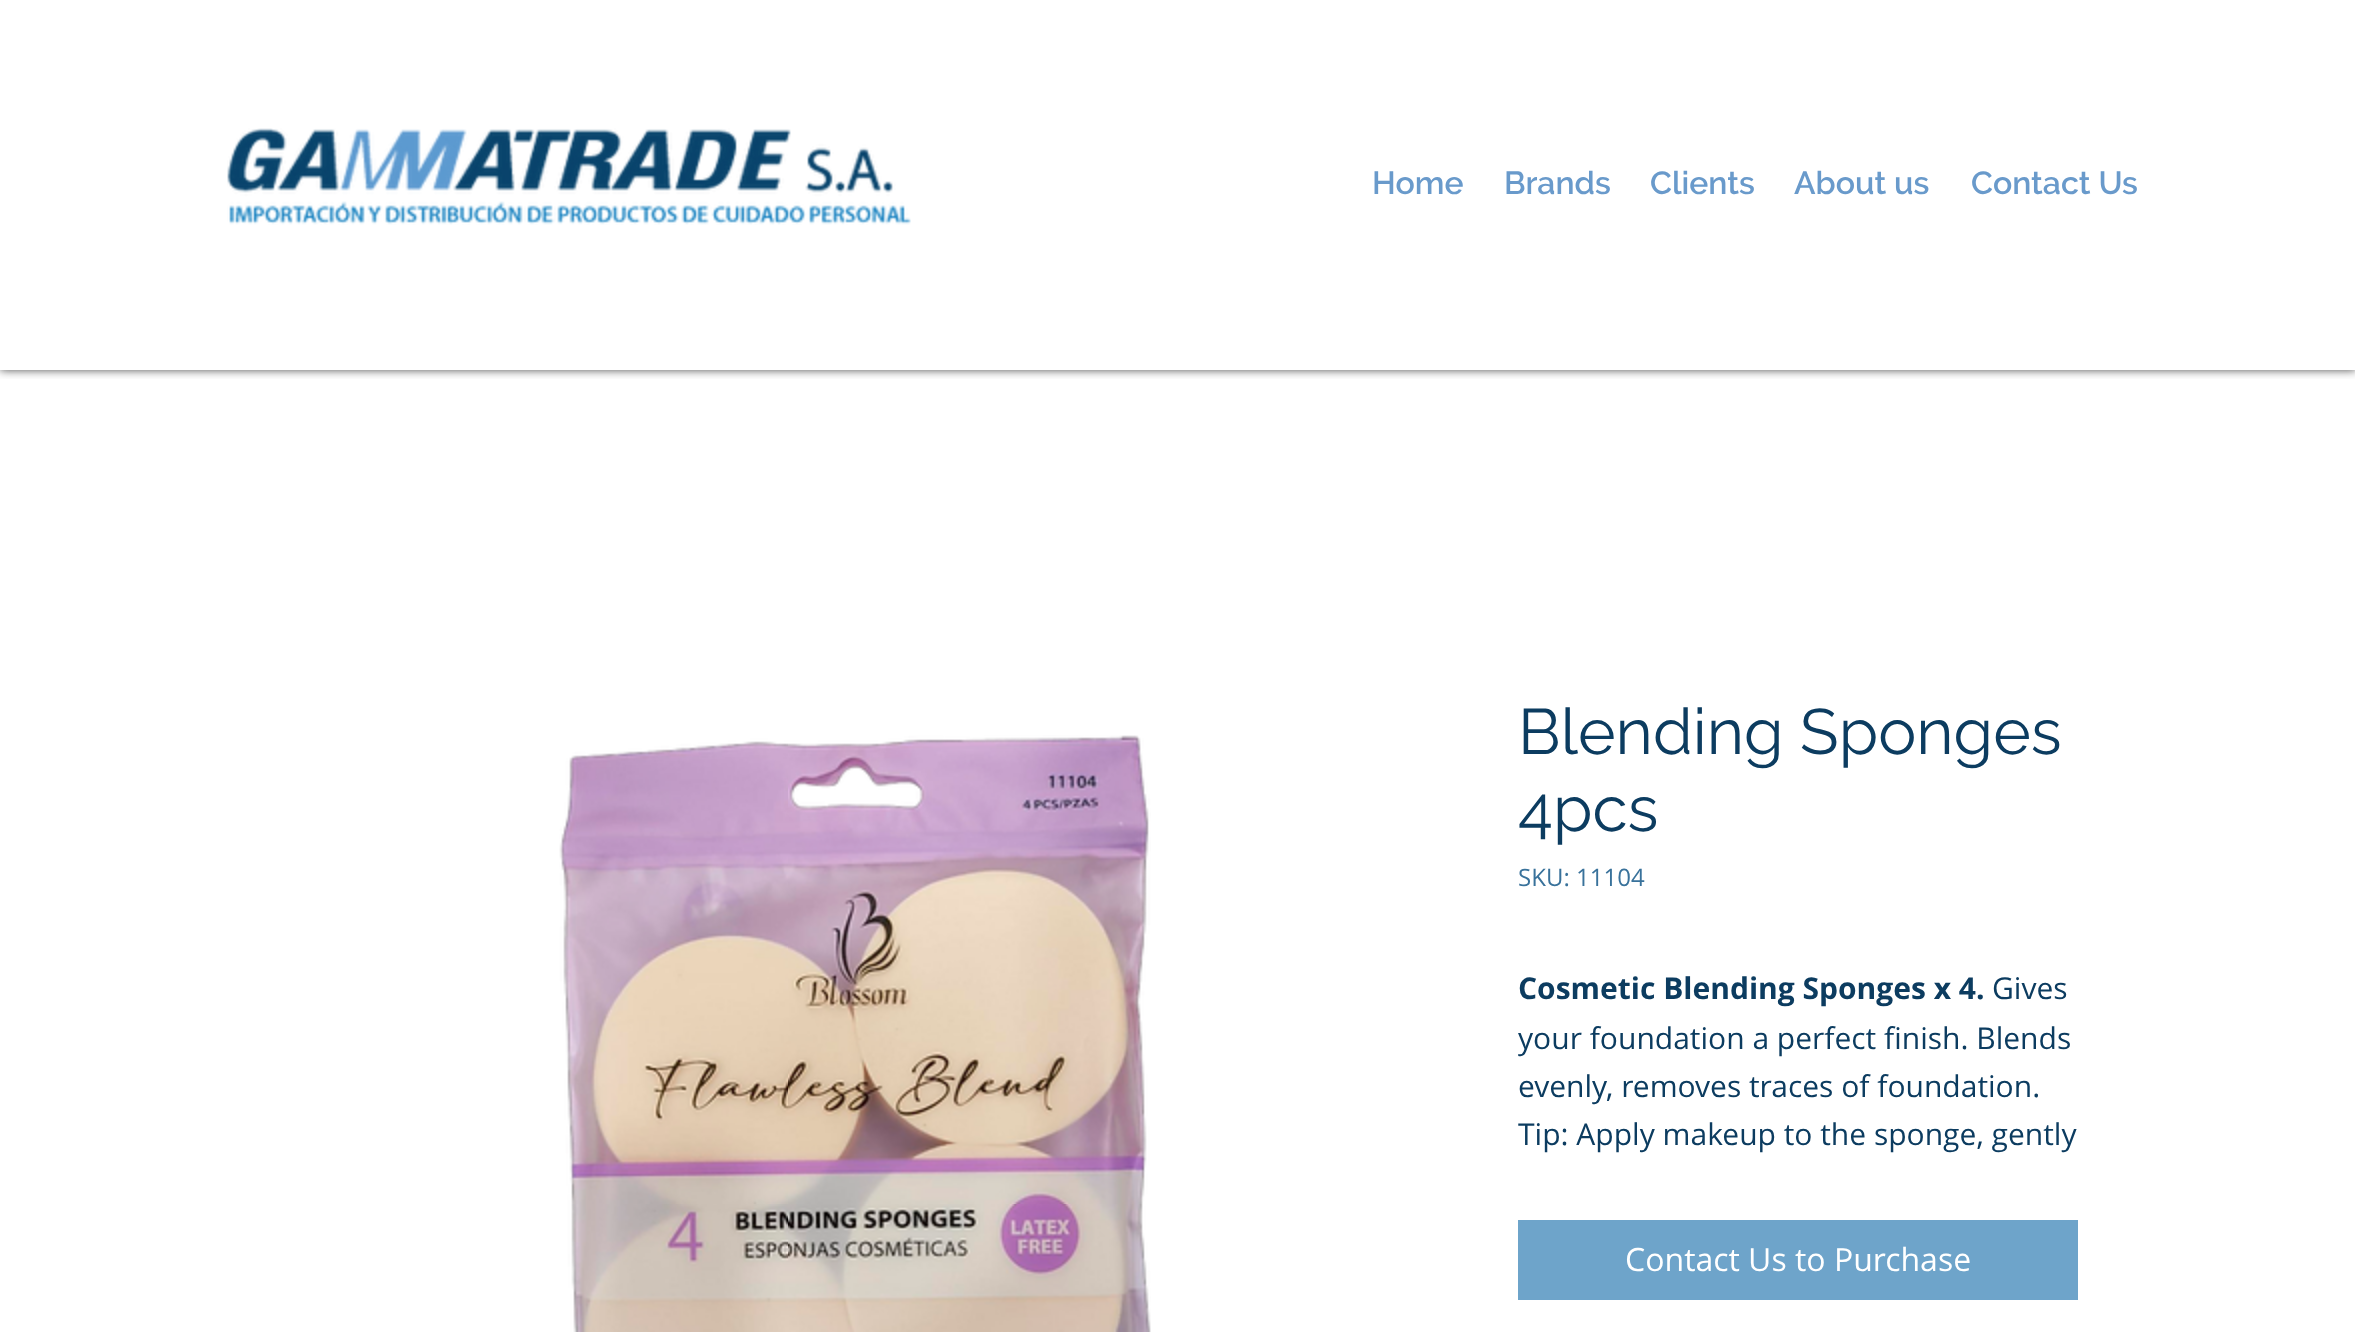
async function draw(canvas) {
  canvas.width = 2355;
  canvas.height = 1332;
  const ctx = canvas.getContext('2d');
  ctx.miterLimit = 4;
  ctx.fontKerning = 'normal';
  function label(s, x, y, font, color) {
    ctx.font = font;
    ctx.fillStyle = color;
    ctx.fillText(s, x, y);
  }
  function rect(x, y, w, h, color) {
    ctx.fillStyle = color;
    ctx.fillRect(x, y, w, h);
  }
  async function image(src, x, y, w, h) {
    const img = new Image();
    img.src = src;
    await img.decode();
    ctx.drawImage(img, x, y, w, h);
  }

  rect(0, 0, 2355, 1332, '#fff');
  ctx.save();
  ctx.beginPath();
  ctx.rect(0, 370, 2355, 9);
  ctx.clip();
  ctx.fillStyle = '#000000b3';
  ctx.filter = 'blur(5px)';
  ctx.beginPath();
  ctx.rect(0, 0, 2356, 370);
  ctx.fill();
  ctx.filter = 'none';
  ctx.restore();
  await image('assets/img1.png', 227, 128, 684, 97);
  label('Home', 1372, 194, '600 32px Raleway', '#699acb');
  label('Brands', 1504, 194, '600 32px Raleway', '#699acb');
  label('Clients', 1650, 194, '600 32px Raleway', '#699acb');
  label('About us', 1794, 194, '600 32px Raleway', '#699acb');
  label('Contact Us', 1971, 194, '600 32px Raleway', '#699acb');
  await image('assets/img2.png', 559, 735, 592, 597);
  label('Blending Sponges', 1518, 754, '64px Raleway', '#0c3c60');
  label('4pcs', 1518, 831, '64px Raleway', '#0c3c60');
  label('SKU: 11104', 1518, 886, '24px Open Sans', '#39729b');
  label('Cosmetic Blending Sponges x 4.', 1518, 999, 'bold 30px Open Sans', '#0c3c60');
  label('Gives', 1992, 999, '30px Open Sans', '#0c3c60');
  label('your foundation a perfect finish. Blends', 1518, 1049, '30px Open Sans', '#0c3c60');
  label('evenly, removes traces of foundation.', 1518, 1097, '30px Open Sans', '#0c3c60');
  label('Tip: Apply makeup to the sponge, gently', 1518, 1145, '30px Open Sans', '#0c3c60');
  rect(1518, 1220, 560, 80, '#6ea4ca');
  label('Contact Us to Purchase', 1625, 1271, '32px Open Sans', '#fff');
}

draw(document.querySelector('canvas'));
